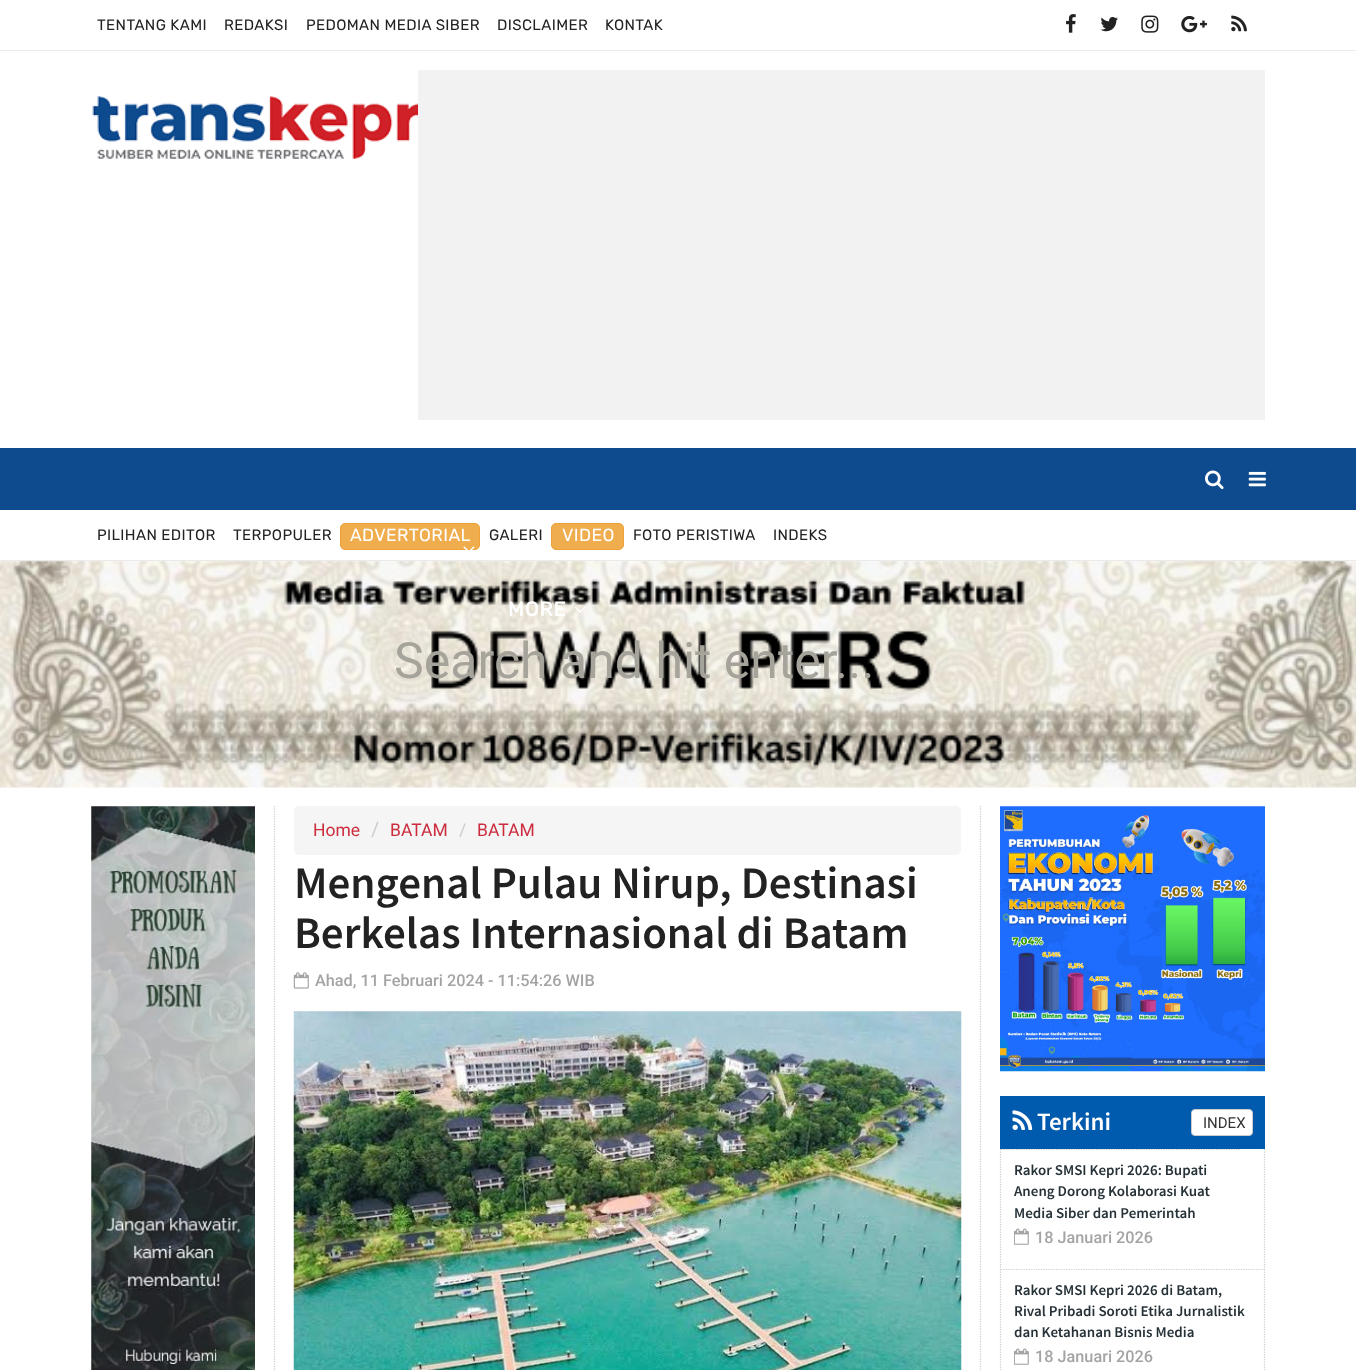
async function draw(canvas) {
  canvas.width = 1356;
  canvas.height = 1370;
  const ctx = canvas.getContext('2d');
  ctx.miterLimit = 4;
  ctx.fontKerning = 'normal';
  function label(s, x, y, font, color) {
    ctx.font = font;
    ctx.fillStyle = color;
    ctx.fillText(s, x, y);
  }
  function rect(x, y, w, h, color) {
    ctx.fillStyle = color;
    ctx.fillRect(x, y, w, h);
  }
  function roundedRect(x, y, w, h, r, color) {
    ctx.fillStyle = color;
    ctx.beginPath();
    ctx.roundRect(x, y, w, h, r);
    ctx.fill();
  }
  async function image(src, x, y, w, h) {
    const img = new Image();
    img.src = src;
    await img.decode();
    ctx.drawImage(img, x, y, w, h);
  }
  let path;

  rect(0, 0, 1356, 1370, '#fff');
  rect(0, 50, 1356, 1, '#eaeaea');
  ctx.letterSpacing = '0.4px';
  label('TENTANG KAMI', 97, 30, '300 15px Rubik', '#222');
  label('REDAKSI', 224, 30, '300 15px Rubik', '#222');
  label('PEDOMAN MEDIA SIBER', 306, 30, '300 15px Rubik', '#222');
  label('DISCLAIMER', 497, 30, '300 15px Rubik', '#222');
  label('KONTAK', 605, 30, '300 15px Rubik', '#222');
  await image('assets/img1.png', 1066, 14, 10, 19);
  await image('assets/img2.png', 1100, 17, 18, 15);
  await image('assets/img3.png', 1141, 15, 18, 18);
  await image('assets/img4.png', 1181, 15, 26, 18);
  await image('assets/img5.png', 1231, 15, 16, 17);
  await image('assets/img6.png', 92, 96, 326, 63);
  rect(418, 70, 847, 350, '#f2f2f2');
  rect(0, 560, 1356, 1, '#eaeaea');
  label('PILIHAN EDITOR', 97, 540, '300 15px Rubik', '#222');
  label('TERPOPULER', 233, 540, '300 15px Rubik', '#222');
  ctx.fillStyle = '#f0ad4e';
  ctx.beginPath();
  ctx.roundRect(340.5, 523.5, 139, 26, 4.5);
  ctx.fill();
  ctx.strokeStyle = '#eea236';
  ctx.stroke();
  label('ADVERTORIAL', 350, 541, '300 17.5px Rubik', '#fff');
  label('GALERI', 489, 540, '300 15px Rubik', '#222');
  ctx.fillStyle = '#f0ad4e';
  ctx.beginPath();
  ctx.roundRect(551.5, 523.5, 72, 26, 4.5);
  ctx.fill();
  ctx.stroke();
  label('VIDEO', 562, 541, '300 17.5px Rubik', '#fff');
  label('FOTO PERISTIWA', 633, 540, '300 15px Rubik', '#222');
  label('INDEKS', 773, 540, '300 15px Rubik', '#222');
  await image('assets/img7.png', 0, 561, 1356, 227);
  rect(0, 448, 1356, 62, '#0e4b8e');
  await image('assets/img8.png', 1205, 470, 19, 20);
  await image('assets/img9.png', 1248, 471, 18, 16);
  await image('assets/img10.png', 463, 546, 12, 4);
  ctx.letterSpacing = '1px';
  label('MORE', 508, 616, 'bold 20px Rubik', '#fff');
  await image('assets/img11.png', 574, 606, 12, 7);
  ctx.letterSpacing = '0px';
  label('Search and hit enter...', 394, 678, '50px Roboto', '#a6a39b');
  await image('assets/img12.png', 91, 806, 164, 564);
  path = new Path2D('M980.5 806V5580');
  ctx.strokeStyle = '#ccc';
  ctx.lineWidth = 1.2;
  ctx.setLineDash([1.25, 1.25]);
  ctx.stroke(path);
  path = new Path2D('M274.5 806V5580');
  ctx.stroke(path);
  roundedRect(294, 806, 667, 49, 5, '#f5f5f5');
  label('Home', 313, 836, '17.5px Roboto', '#cb2d3e');
  label('/', 371, 836, '20px Roboto', '#ccc');
  label('BATAM', 390, 836, '17.5px Roboto', '#cb2d3e');
  label('/', 459, 836, '17.5px Roboto', '#ccc');
  label('BATAM', 477, 836, '17.5px Roboto', '#cb2d3e');
  label('Mengenal Pulau Nirup, Destinasi', 294, 898, '600 45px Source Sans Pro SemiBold', '#222');
  label('Berkelas Internasional di Batam', 294, 948, '600 45px Source Sans Pro SemiBold', '#222');
  await image('assets/img13.png', 293, 972, 16, 17);
  label('Ahad, 11 Februari 2024 - 11:54:26 WIB', 315, 986, '500 16.25px Roboto', '#a4a4a4');
  await image('assets/img14.png', 293, 1011, 669, 359);
  await image('assets/img15.png', 1000, 806, 265, 266);
  path = new Path2D('M1000.5 1149V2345');
  ctx.stroke(path);
  path = new Path2D('M1001 1149.5H1241');
  ctx.stroke(path);
  rect(1000, 1096, 265, 53, '#005bae');
  await image('assets/img16.png', 1012, 1110, 21, 20);
  label('Terkini', 1037, 1130, '600 25px Source Sans Pro SemiBold', '#fff');
  ctx.beginPath();
  ctx.roundRect(1191.5, 1109.5, 61, 26, 3.5);
  ctx.fill();
  ctx.lineWidth = 1;
  ctx.setLineDash([]);
  ctx.stroke();
  label('INDEX', 1203, 1128, '15px Roboto', '#333');
  path = new Path2D('M1264.5 1149V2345');
  ctx.lineWidth = 1.2;
  ctx.setLineDash([1.25, 1.25]);
  ctx.stroke(path);
  label('Rakor SMSI Kepri 2026: Bupati', 1014, 1175, '600 15px Source Sans Pro SemiBold', '#263238');
  label('Aneng Dorong Kolaborasi Kuat', 1014, 1196, '600 15px Source Sans Pro SemiBold', '#263238');
  label('Media Siber dan Pemerintah', 1014, 1218, '600 15px Source Sans Pro SemiBold', '#263238');
  await image('assets/img17.png', 1014, 1228, 15, 17);
  label('18 Januari 2026', 1035, 1243, '500 16.25px Roboto', '#a4a4a4');
  path = new Path2D('M1001 1269.5H1264');
  ctx.stroke(path);
  label('Rakor SMSI Kepri 2026 di Batam,', 1014, 1295, '600 15px Source Sans Pro SemiBold', '#263238');
  label('Rival Pribadi Soroti Etika Jurnalistik', 1014, 1316, '600 15px Source Sans Pro SemiBold', '#263238');
  label('dan Ketahanan Bisnis Media', 1014, 1337, '600 15px Source Sans Pro SemiBold', '#263238');
  await image('assets/img17.png', 1014, 1348, 15, 17);
  label('18 Januari 2026', 1035, 1362, '500 16.25px Roboto', '#a4a4a4');
}

draw(document.querySelector('canvas'));
